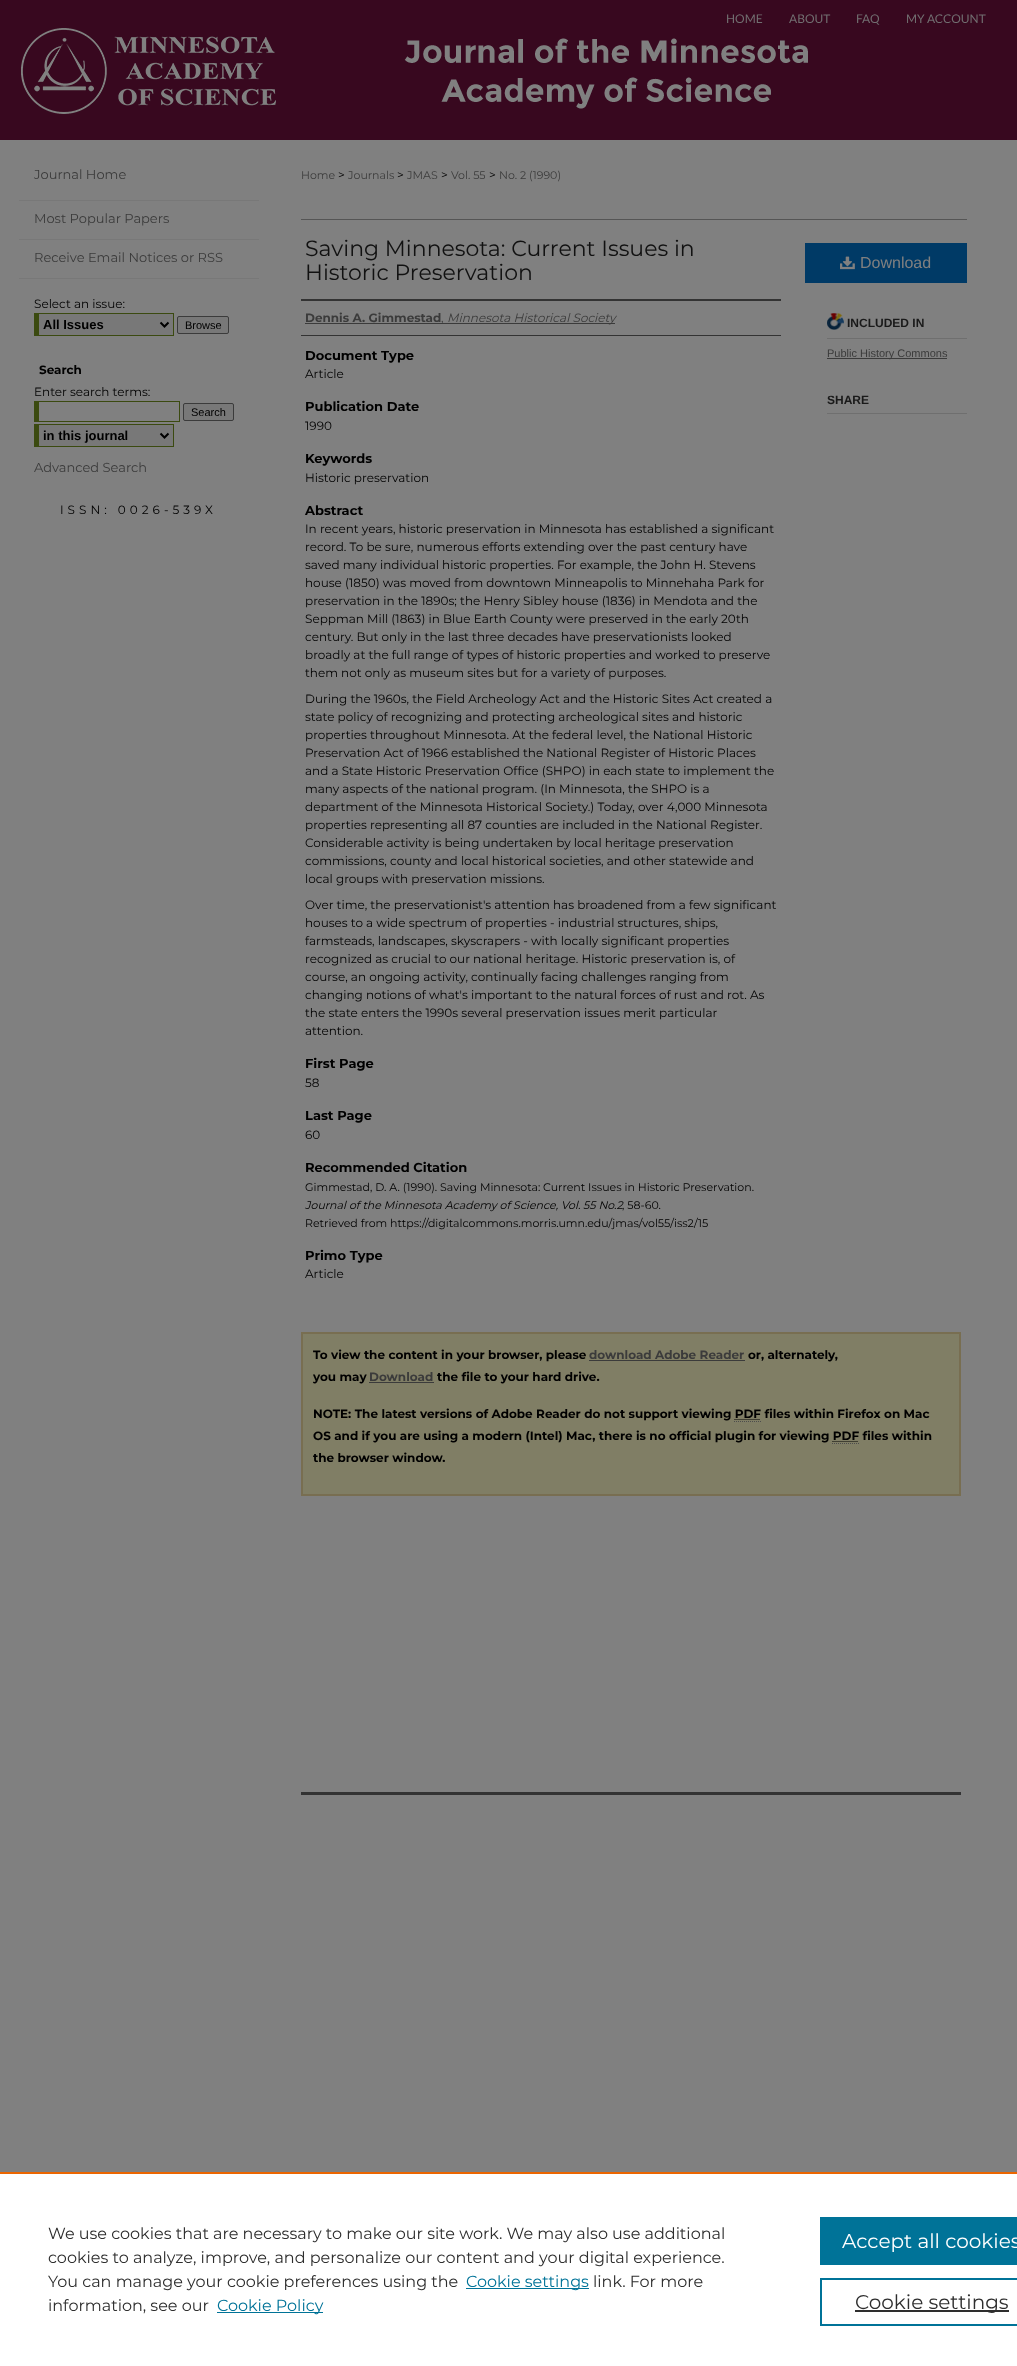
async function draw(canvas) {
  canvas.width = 1017;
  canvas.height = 2366;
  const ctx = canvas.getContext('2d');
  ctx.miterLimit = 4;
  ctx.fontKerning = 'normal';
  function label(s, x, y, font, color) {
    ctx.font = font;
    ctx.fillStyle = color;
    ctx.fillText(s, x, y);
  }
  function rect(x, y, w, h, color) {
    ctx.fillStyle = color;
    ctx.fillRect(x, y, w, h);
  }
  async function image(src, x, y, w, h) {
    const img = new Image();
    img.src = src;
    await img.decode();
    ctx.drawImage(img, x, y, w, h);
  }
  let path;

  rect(0, 0, 1017, 2366, '#808080');
  rect(0, 0, 1017, 140, '#38081f');
  label('HOME', 726, 23, '12px Lato', '#716e70');
  label('ABOUT', 789, 23, '12px Lato', '#716e70');
  label('FAQ', 856, 23, '12px Lato', '#716e70');
  label('MY ACCOUNT', 906, 23, '12px Lato', '#716e70');
  await image('assets/img1.png', 21, 28, 787, 86);
  label('Journal Home', 34, 179, '13px Montserrat', '#3b3b3b');
  rect(19, 200, 240, 1, '#787878');
  rect(19, 239, 240, 1, '#787878');
  label('Most Popular Papers', 34, 223, '13px Montserrat', '#3b3b3b');
  rect(19, 278, 240, 1, '#787878');
  label('Receive Email Notices or RSS', 34, 262, '13px Montserrat', '#3b3b3b');
  label('Select an issue:', 34, 308, '12px Montserrat', '#000');
  rect(39, 314, 134, 21, '#787878');
  rect(34, 313, 140, 1, '#3b4a10');
  rect(173, 313, 1, 23, '#3b4a10');
  rect(34, 335, 140, 1, '#3b4a10');
  rect(34, 313, 5, 23, '#3b4a10');
  path = new Path2D('M160.5 322.5L164.5 326.5L168.5 322.5');
  ctx.strokeStyle = '#000';
  ctx.lineWidth = 2;
  ctx.stroke(path);
  label('All Issues', 43, 329, 'bold 13px Liberation Sans', '#000');
  ctx.fillStyle = '#787878';
  ctx.beginPath();
  ctx.roundRect(177.5, 316.5, 51, 17, 1.5);
  ctx.fill();
  ctx.strokeStyle = '#3b3b3b';
  ctx.lineWidth = 1;
  ctx.stroke();
  label('Browse', 185, 329, '11px Liberation Sans', '#000');
  label('Search', 39, 374, 'bold 12px Montserrat', '#000');
  label('Enter search terms:', 34, 396, '12px Montserrat', '#000');
  rect(34, 401, 146, 1, '#3b4a10');
  rect(179, 401, 1, 21, '#3b4a10');
  rect(34, 421, 146, 1, '#3b4a10');
  rect(34, 401, 5, 21, '#3b4a10');
  ctx.fillStyle = '#787878';
  ctx.beginPath();
  ctx.roundRect(183.5, 403.5, 50, 17, 1.5);
  ctx.fill();
  ctx.stroke();
  label('Search', 191, 416, '11px Liberation Sans', '#000');
  rect(39, 425, 134, 21, '#787878');
  rect(34, 424, 140, 1, '#3b4a10');
  rect(173, 424, 1, 23, '#3b4a10');
  rect(34, 446, 140, 1, '#3b4a10');
  rect(34, 424, 5, 23, '#3b4a10');
  path = new Path2D('M160.5 433.5L164.5 437.5L168.5 433.5');
  ctx.strokeStyle = '#000';
  ctx.lineWidth = 2;
  ctx.stroke(path);
  label('in this journal', 43, 440, 'bold 13px Liberation Sans', '#000');
  label('Advanced Search', 34, 472, '13px Montserrat', '#3b3b3b');
  ctx.letterSpacing = '4px';
  label('ISSN: 0026-539X', 60, 514, '12px Montserrat', '#000');
  ctx.letterSpacing = '0px';
  label('Home', 301, 179, '11px Montserrat', '#3b3b3b');
  label('>', 338, 179, '12px Montserrat', '#000');
  label('Journals', 348, 179, '11px Montserrat', '#3b3b3b');
  label('>', 397, 179, '12px Montserrat', '#000');
  label('JMAS', 407, 179, '11px Montserrat', '#3b3b3b');
  label('>', 441, 179, '12px Montserrat', '#000');
  label('Vol. 55', 451, 179, '11px Montserrat', '#3b3b3b');
  label('>', 489, 179, '12px Montserrat', '#000');
  label('No. 2 (1990)', 499, 179, '11px Montserrat', '#3b3b3b');
  rect(301, 219, 666, 1, '#555');
  label('Saving Minnesota: Current Issues in', 305, 256, '22px Montserrat', '#111');
  label('Historic Preservation', 305, 280, '22px Montserrat', '#111');
  rect(301, 299, 480, 2, '#333');
  rect(301, 335, 480, 1, '#333');
  label('Dennis A. Gimmestad', 305, 322, 'bold 12px Montserrat', '#3b3b3b');
  rect(305, 323, 310, 1, '#3b3b3b');
  label(',', 441, 322, '12px Montserrat', '#3b3b3b');
  label('Minnesota Historical Society', 447, 322, 'italic 12px Montserrat', '#3b3b3b');
  label('Document Type', 305, 360, 'bold 13px Montserrat', '#000');
  label('Article', 305, 378, '12px Montserrat', '#000');
  label('Publication Date', 305, 411, 'bold 13px Montserrat', '#000');
  label('1990', 305, 430, '12px Montserrat', '#000');
  label('Keywords', 305, 463, 'bold 13px Montserrat', '#000');
  label('Historic preservation', 305, 482, '12px Montserrat', '#000');
  label('Abstract', 305, 515, 'bold 13px Montserrat', '#000');
  label('In recent years, historic preservation in Minnesota has established a significant', 305, 533, '12px Montserrat', '#000');
  label('record. To be sure, numerous efforts extending over the past century have', 305, 551, '12px Montserrat', '#000');
  label('saved many individual historic properties. For example, the John H. Stevens', 305, 569, '12px Montserrat', '#000');
  label('house (1850) was moved from downtown Minneapolis to Minnehaha Park for', 305, 587, '12px Montserrat', '#000');
  label('preservation in the 1890s; the Henry Sibley house (1836) in Mendota and the', 305, 605, '12px Montserrat', '#000');
  label('Seppman Mill (1863) in Blue Earth County were preserved in the early 20th', 305, 623, '12px Montserrat', '#000');
  label('century. But only in the last three decades have preservationists looked', 305, 641, '12px Montserrat', '#000');
  label('broadly at the full range of types of historic properties and worked to preserve', 305, 659, '12px Montserrat', '#000');
  label('them not only as museum sites but for a variety of purposes.', 305, 677, '12px Montserrat', '#000');
  label('During the 1960s, the Field Archeology Act and the Historic Sites Act created a', 305, 703, '12px Montserrat', '#000');
  label('state policy of recognizing and protecting archeological sites and historic', 305, 721, '12px Montserrat', '#000');
  label('properties throughout Minnesota. At the federal level, the National Historic', 305, 739, '12px Montserrat', '#000');
  label('Preservation Act of 1966 established the National Register of Historic Places', 305, 757, '12px Montserrat', '#000');
  label('and a State Historic Preservation Office (SHPO) in each state to implement the', 305, 775, '12px Montserrat', '#000');
  label('many aspects of the national program. (In Minnesota, the SHPO is a', 305, 793, '12px Montserrat', '#000');
  label('department of the Minnesota Historical Society.) Today, over 4,000 Minnesota', 305, 811, '12px Montserrat', '#000');
  label('properties representing all 87 counties are included in the National Register.', 305, 829, '12px Montserrat', '#000');
  label('Considerable activity is being undertaken by local heritage preservation', 305, 847, '12px Montserrat', '#000');
  label('commissions, county and local historical societies, and other statewide and', 305, 865, '12px Montserrat', '#000');
  label('local groups with preservation missions.', 305, 883, '12px Montserrat', '#000');
  label('Over time, the preservationist\'s attention has broadened from a few significant', 305, 909, '12px Montserrat', '#000');
  label('houses to a wide spectrum of properties - industrial structures, ships,', 305, 927, '12px Montserrat', '#000');
  label('farmsteads, landscapes, skyscrapers - with locally significant properties', 305, 945, '12px Montserrat', '#000');
  label('recognized as crucial to our national heritage. Historic preservation is, of', 305, 963, '12px Montserrat', '#000');
  label('course, an ongoing activity, continually facing challenges ranging from', 305, 981, '12px Montserrat', '#000');
  label('changing notions of what\'s important to the natural forces of rust and rot. As', 305, 999, '12px Montserrat', '#000');
  label('the state enters the 1990s several preservation issues merit particular', 305, 1017, '12px Montserrat', '#000');
  label('attention.', 305, 1035, '12px Montserrat', '#000');
  label('First Page', 305, 1068, 'bold 13px Montserrat', '#000');
  label('58', 305, 1087, '12px Montserrat', '#000');
  label('Last Page', 305, 1120, 'bold 13px Montserrat', '#000');
  label('60', 305, 1139, '12px Montserrat', '#000');
  label('Recommended Citation', 305, 1172, 'bold 13px Montserrat', '#000');
  label('Gimmestad, D. A. (1990). Saving Minnesota: Current Issues in Historic Preservation.', 305, 1191, '11px Montserrat', '#000');
  label('Journal of the Minnesota Academy of Science, Vol. 55 No.2', 305, 1209, 'italic 11px Montserrat', '#000');
  label(', 58-60.', 622, 1209, '11px Montserrat', '#000');
  label('Retrieved from https://digitalcommons.morris.umn.edu/jmas/vol55/iss2/15', 305, 1227, '11px Montserrat', '#000');
  label('Primo Type', 305, 1260, 'bold 13px Montserrat', '#000');
  label('Article', 305, 1278, '12px Montserrat', '#000');
  rect(805, 243, 162, 40, '#003a66');
  await image('assets/img2.png', 840, 256, 15, 14);
  label('Download', 860, 268, '16px Liberation Sans', '#808080');
  await image('assets/img3.png', 827, 313, 17, 17);
  rect(827, 338, 140, 1, '#6f6f6f');
  label('INCLUDED IN', 847, 327, 'bold 12px Liberation Sans', '#1a1a1a');
  rect(827, 358, 120, 1, '#3b3b3b');
  label('Public History Commons', 827, 357, '11px Liberation Sans', '#3b3b3b');
  rect(827, 413, 140, 1, '#6f6f6f');
  label('SHARE', 827, 404, 'bold 12px Liberation Sans', '#1a1a1a');
  rect(301, 1792, 660, 3, '#333');
  ctx.fillStyle = '#807e65';
  ctx.beginPath();
  ctx.rect(302, 1333, 658, 162);
  ctx.fill();
  ctx.strokeStyle = '#786e51';
  ctx.stroke();
  label('To view the content in your browser, please', 313, 1359, 'bold 12px Montserrat', '#000');
  label('download Adobe Reader', 589, 1359, 'bold 12px Montserrat', '#3b3b3b');
  rect(589, 1360, 156, 1, '#3b3b3b');
  label('or, alternately,', 748, 1359, 'bold 12px Montserrat', '#000');
  label('you may', 313, 1381, 'bold 12px Montserrat', '#000');
  label('Download', 369, 1381, 'bold 12px Montserrat', '#3b3b3b');
  rect(369, 1382, 65, 1, '#3b3b3b');
  label('the file to your hard drive.', 437, 1381, 'bold 12px Montserrat', '#000');
  label('NOTE: The latest versions of Adobe Reader do not support viewing PDF files within Firefox on Mac', 313, 1418, 'bold 12px Montserrat', '#000');
  path = new Path2D('M734.5 1419.5H760.5');
  ctx.strokeStyle = '#000';
  ctx.lineWidth = 1;
  ctx.setLineDash([1, 1]);
  ctx.stroke(path);
  path = new Path2D('M734 1421.5H761');
  ctx.strokeStyle = '#4d4d4d';
  ctx.stroke(path);
  label('OS and if you are using a modern (Intel) Mac, there is no official plugin for viewing PDF files within', 313, 1440, 'bold 12px Montserrat', '#000');
  path = new Path2D('M832.5 1441.5H858.5');
  ctx.strokeStyle = '#000';
  ctx.stroke(path);
  path = new Path2D('M832 1443.5H859');
  ctx.strokeStyle = '#4d4d4d';
  ctx.stroke(path);
  label('the browser window.', 313, 1462, 'bold 12px Montserrat', '#000');
  rect(0, 2174, 1017, 192, '#fff');
  rect(0, 2172, 1017, 2, '#eb6500');
  label('We use cookies that are necessary to make our site work. We may also use additional', 48, 2239, '16px Montserrat', '#2e2e2e');
  label('cookies to analyze, improve, and personalize our content and your digital experience.', 48, 2263, '16px Montserrat', '#2e2e2e');
  label('You can manage your cookie preferences using the', 48, 2287, '16px Montserrat', '#2e2e2e');
  rect(466, 2288, 123, 1, '#007398');
  label('Cookie settings', 466, 2287, '16px Montserrat', '#007398');
  label('link. For more', 593, 2287, '16px Montserrat', '#2e2e2e');
  label('information, see our', 48, 2311, '16px Montserrat', '#2e2e2e');
  rect(217, 2312, 106, 1, '#007398');
  label('Cookie Policy', 217, 2311, '16px Montserrat', '#007398');
  rect(820, 2217, 197, 48, '#007398');
  label('Accept all cookies', 842, 2248, '20px Montserrat', '#fff');
  ctx.strokeStyle = '#007398';
  ctx.lineWidth = 2;
  ctx.setLineDash([]);
  ctx.strokeRect(821, 2279, 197, 46);
  rect(855, 2310, 154, 2, '#2e2e2e');
  label('Cookie settings', 855, 2309, '20px Montserrat', '#2e2e2e');
}

draw(document.querySelector('canvas'));
